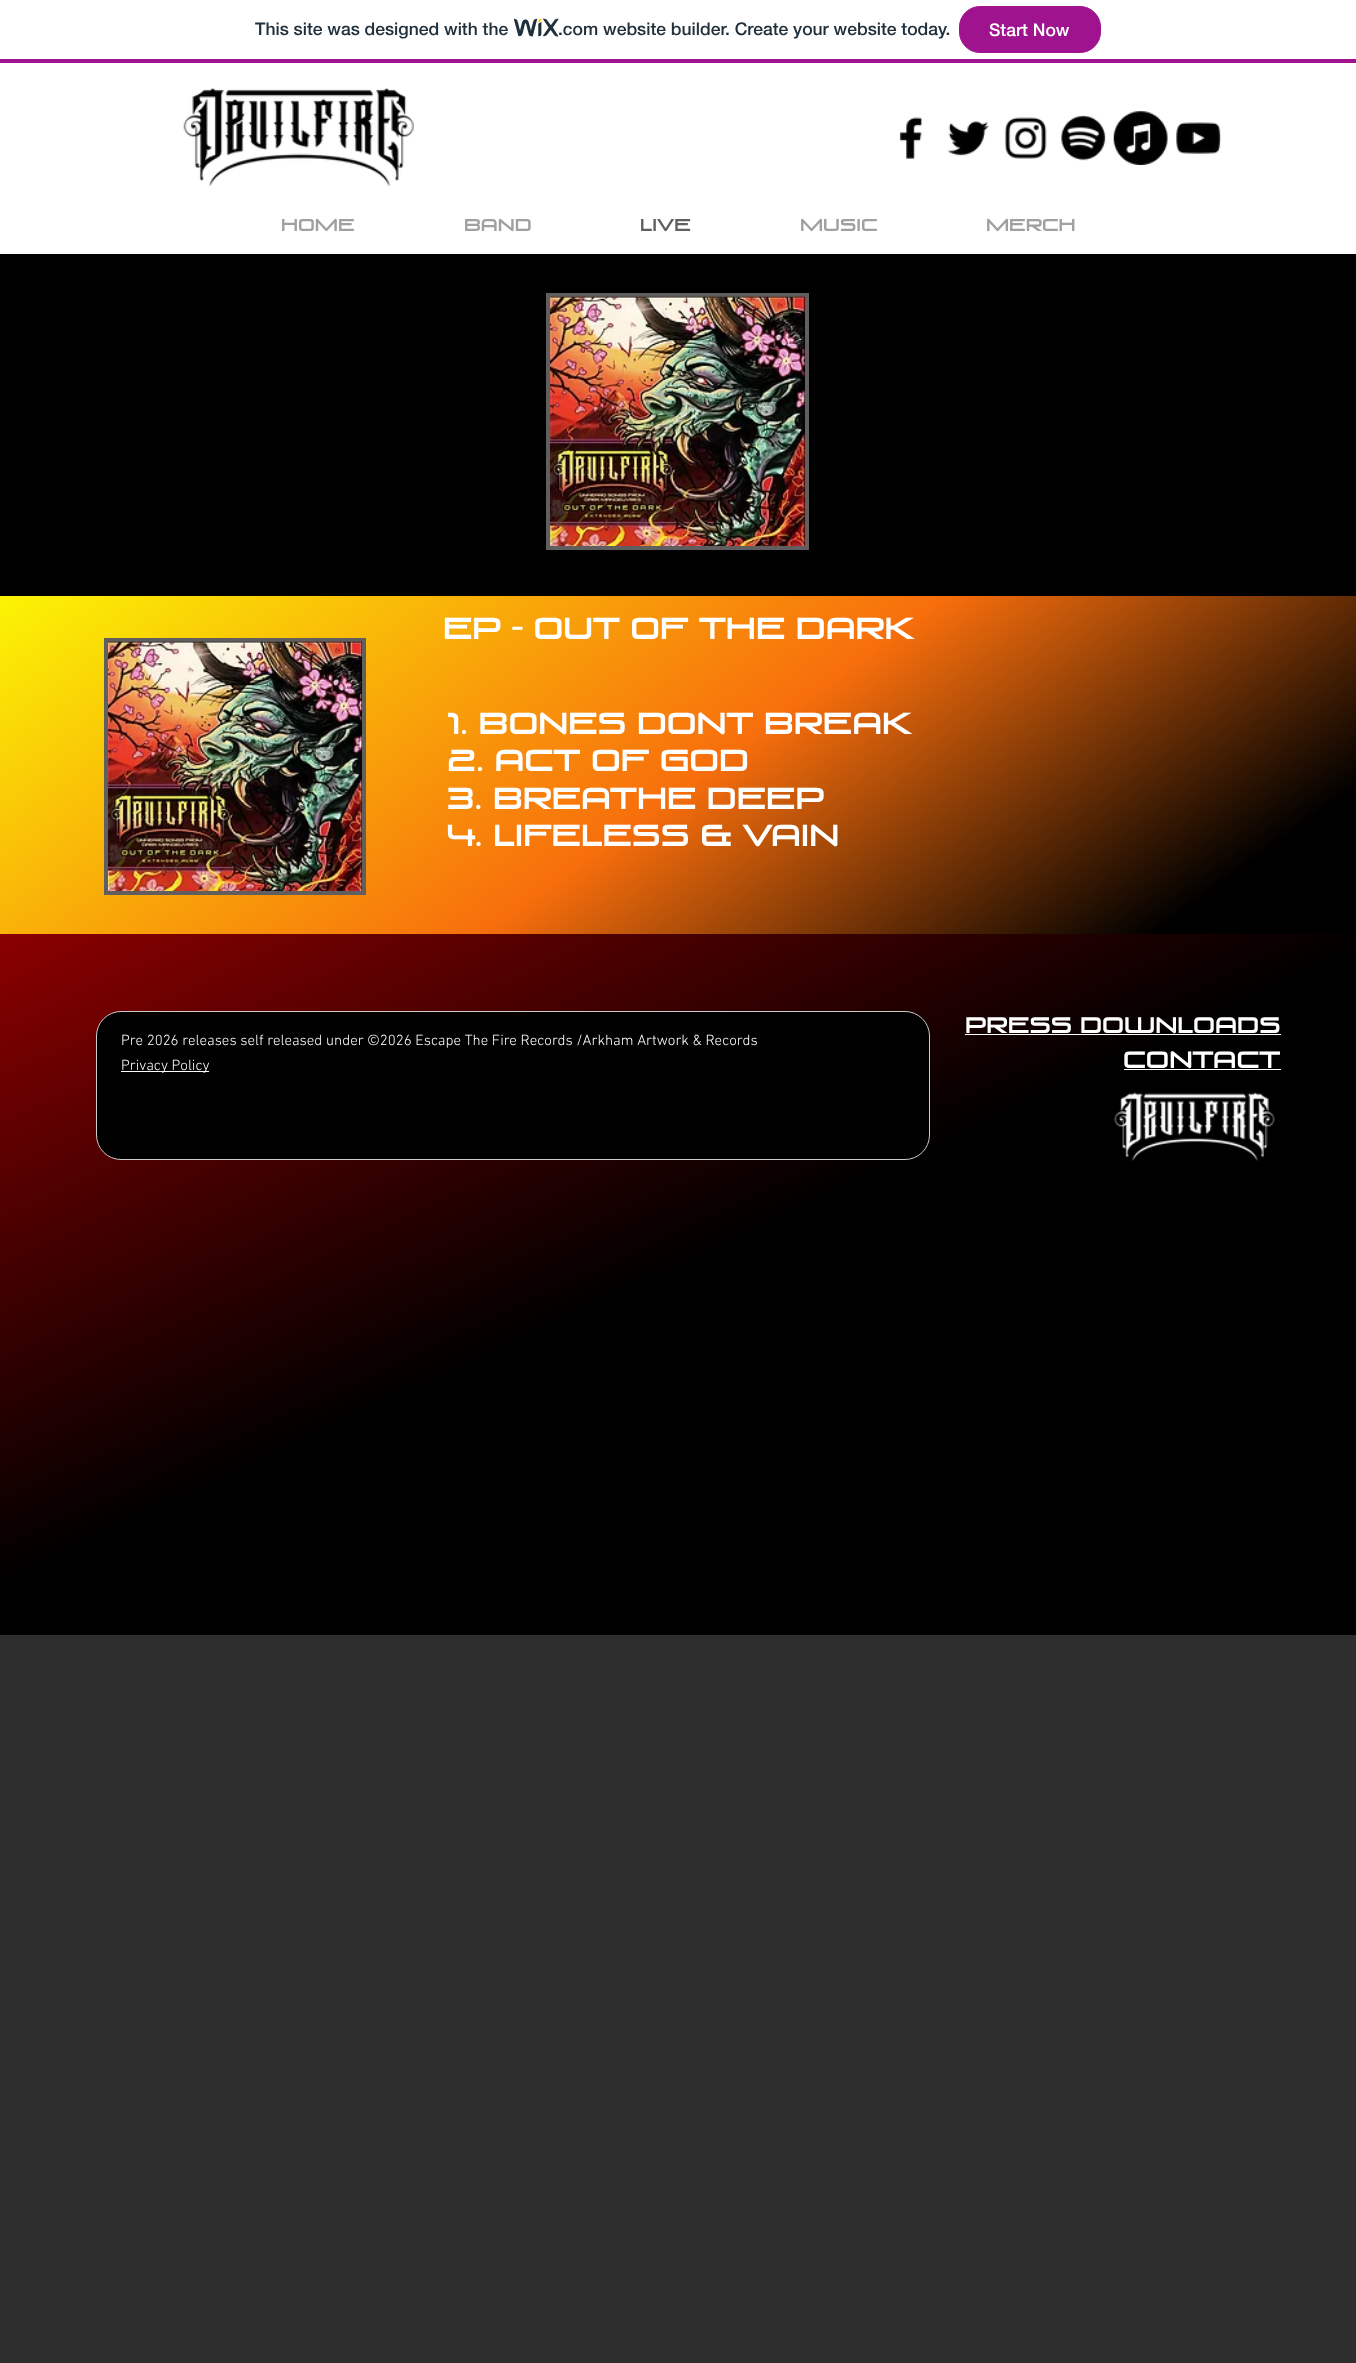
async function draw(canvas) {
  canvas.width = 1356;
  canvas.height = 2363;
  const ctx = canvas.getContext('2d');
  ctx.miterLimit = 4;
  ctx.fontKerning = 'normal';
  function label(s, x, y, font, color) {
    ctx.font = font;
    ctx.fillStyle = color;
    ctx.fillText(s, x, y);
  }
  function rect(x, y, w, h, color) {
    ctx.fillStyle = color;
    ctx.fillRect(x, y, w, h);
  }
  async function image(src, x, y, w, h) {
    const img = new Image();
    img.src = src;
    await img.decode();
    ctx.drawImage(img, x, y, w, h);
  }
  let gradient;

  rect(0, 0, 1356, 2363, '#fff');
  rect(0, 59, 1356, 4, '#a0138e');
  label('This site was designed with the', 255, 35, '500 17.5px "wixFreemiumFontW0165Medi"', '#20303c');
  await image('assets/img1.png', 514, 18, 45, 19);
  label('.com website builder. Create your website today.', 558, 35, '500 17.5px "wixFreemiumFontW0165Medi"', '#20303c');
  ctx.fillStyle = '#a0138e';
  ctx.beginPath();
  ctx.roundRect(959.5, 6.5, 141, 46, 20.5);
  ctx.fill();
  ctx.strokeStyle = '#a0138e';
  ctx.stroke();
  label('Start Now', 989, 36, '500 17.5px "wixFreemiumFontW0165Medi"', '#fff');
  await image('assets/img2.png', 183, 88, 231, 99);
  await image('assets/img3.png', 899, 117, 24, 42);
  await image('assets/img4.png', 947, 121, 42, 35);
  await image('assets/img5.png', 1004, 117, 43, 42);
  await image('assets/img6.png', 1061, 115, 45, 46);
  await image('assets/img7.png', 1113, 111, 55, 54);
  await image('assets/img8.png', 1176, 122, 45, 32);
  label('HOME', 281, 231, '16.25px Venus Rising', '#a0a09f');
  label('BAND', 464, 231, '16.25px Venus Rising', '#a0a09f');
  label('LIVE', 640, 231, '16.25px Venus Rising', '#605e5e');
  label('MUSIC', 800, 231, '16.25px Venus Rising', '#a0a09f');
  label('Merch', 986, 231, '16.25px Venus Rising', '#a0a09f');
  rect(0, 254, 1356, 342, '#000');
  rect(546, 293, 263, 257, '#605e5e');
  await image('assets/img9.png', 550, 296, 255, 250);
  gradient = ctx.createLinearGradient(364, 332, 993, 1198);
  gradient.addColorStop(0, '#fbf404');
  gradient.addColorStop(0.52, '#f76e0c');
  gradient.addColorStop(0.89, '#000');
  ctx.fillStyle = gradient;
  ctx.fillRect(0, 596, 1356, 338);
  label('EP - OUT OF THE DARK', 443, 639, '28.75px Venus Rising', '#fff');
  rect(104, 638, 262, 257, '#605e5e');
  await image('assets/img10.png', 108, 641, 254, 250);
  label('1. BONES DONT BREAK', 447, 734, '28.75px Venus Rising', '#fff');
  label('2. ACT OF GOD', 447, 771, '28.75px Venus Rising', '#fff');
  label('3. BREATHE DEEP', 447, 809, '28.75px Venus Rising', '#fff');
  label('4. LIFELESS & VAIN', 447, 846, '28.75px Venus Rising', '#fff');
  gradient = ctx.createLinearGradient(423, 737, 934, 1832);
  gradient.addColorStop(0, '#8b0000');
  gradient.addColorStop(0.49, '#000');
  ctx.fillStyle = gradient;
  ctx.fillRect(0, 934, 1356, 701);
  label('PRESS DOWNLOADS', 965, 1033, '21.25px Venus Rising', '#fff');
  rect(965, 1034, 316, 1, '#fff');
  ctx.fillStyle = '#000';
  ctx.beginPath();
  ctx.roundRect(96.5, 1011.5, 833, 148, 24.5);
  ctx.fill();
  ctx.strokeStyle = '#ccc';
  ctx.stroke();
  label('Pre 2026 releases self released under ©2026 Escape The Fire Records /Arkham Artwork & Records', 121, 1045, '300 15px "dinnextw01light"', '#fff');
  rect(121, 1071, 88, 1, '#fff');
  label('Privacy Policy', 121, 1070, '300 15px "dinnextw01light"', '#fff');
  label('CONTACT', 1123, 1068, '22.5px Venus Rising', '#fff');
  rect(1124, 1069, 157, 1, '#fff');
  await image('assets/img11.png', 1113, 1092, 162, 69);
  rect(0, 1635, 1356, 728, '#2f2e2e');
}

draw(document.querySelector('canvas'));
